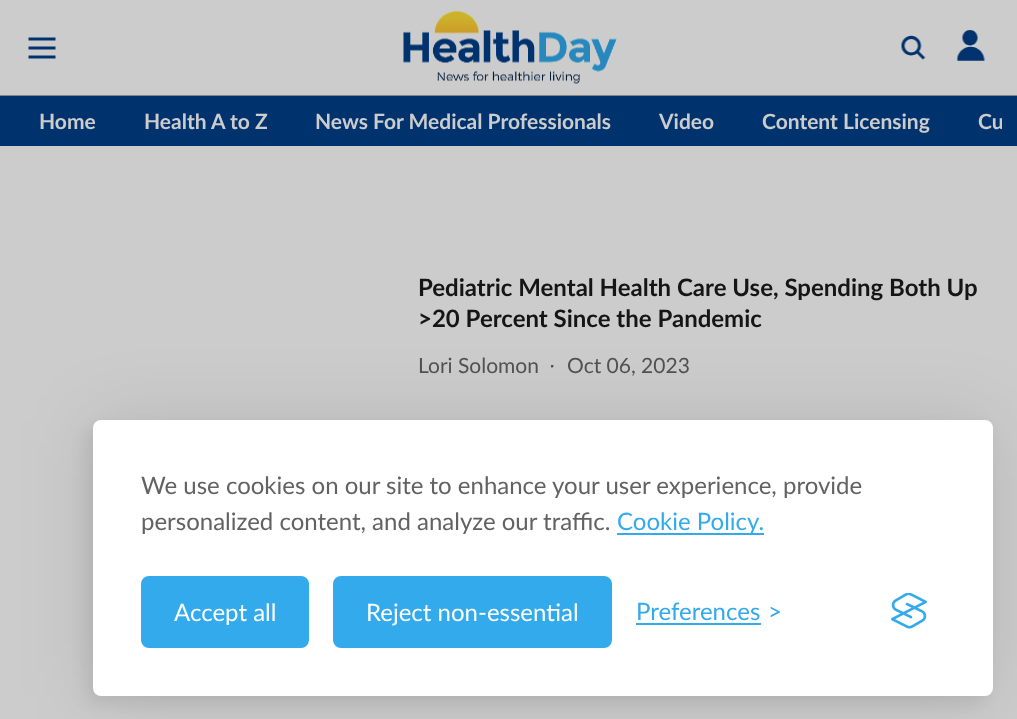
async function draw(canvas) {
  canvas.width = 1017;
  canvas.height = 719;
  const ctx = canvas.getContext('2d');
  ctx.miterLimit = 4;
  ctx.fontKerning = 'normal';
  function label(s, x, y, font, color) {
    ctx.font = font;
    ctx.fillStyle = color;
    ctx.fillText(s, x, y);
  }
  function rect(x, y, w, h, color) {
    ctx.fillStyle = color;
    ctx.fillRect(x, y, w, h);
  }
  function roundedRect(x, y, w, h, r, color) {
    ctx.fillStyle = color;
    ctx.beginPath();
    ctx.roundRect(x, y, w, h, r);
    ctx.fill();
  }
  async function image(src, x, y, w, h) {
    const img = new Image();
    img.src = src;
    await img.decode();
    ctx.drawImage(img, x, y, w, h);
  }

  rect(0, 0, 1017, 719, '#ccc');
  rect(0, 95, 1017, 1, '#838383');
  await image('assets/img1.png', 28, 37, 28, 22);
  await image('assets/img2.png', 403, 10, 214, 74);
  await image('assets/img3.png', 901, 35, 25, 25);
  await image('assets/img4.png', 956, 30, 29, 31);
  rect(0, 96, 1017, 50, '#00336e');
  label('Home', 39, 129, 'bold 21px Lato', '#ccc');
  label('Health A to Z', 144, 129, 'bold 21px Lato', '#ccc');
  label('News For Medical Professionals', 315, 129, 'bold 21px Lato', '#ccc');
  label('Video', 659, 129, 'bold 21px Lato', '#ccc');
  label('Content Licensing', 762, 129, 'bold 21px Lato', '#ccc');
  ctx.save();
  ctx.beginPath();
  ctx.rect(15, 96, 987, 50);
  ctx.clip();
  label('Cu', 978, 129, 'bold 21px Lato', '#ccc');
  ctx.restore();
  label('Pediatric Mental Health Care Use, Spending Both Up', 418, 296, 'bold 24px Lato', '#151515');
  label('>20 Percent Since the Pandemic', 418, 327, 'bold 24px Lato', '#151515');
  label('Lori Solomon', 418, 373, '21px Lato', '#525252');
  ctx.save();
  ctx.beginPath();
  ctx.rect(551, 365, 5, 5);
  ctx.clip();
  ctx.beginPath();
  ctx.arc(552, 366, 1.5, 0, 2 * Math.PI);
  ctx.fill();
  ctx.restore();
  label('Oct 06, 2023', 567, 373, '21px Lato', '#525252');
  ctx.fillStyle = '#0000001a';
  ctx.filter = 'blur(37.5px)';
  ctx.beginPath();
  ctx.roundRect(93, 420, 900, 276, 8);
  ctx.fill();
  ctx.filter = 'none';
  ctx.fillStyle = '#00000012';
  ctx.filter = 'blur(7.5px)';
  ctx.beginPath();
  ctx.roundRect(86, 428, 900, 276, 8);
  ctx.fill();
  ctx.filter = 'none';
  roundedRect(93, 420, 900, 276, 8, '#fff');
  label('We use cookies on our site to enhance your user experience, provide', 141, 494, '24px Lato', '#626262');
  label('personalized content, and analyze our traffic.', 141, 530, '24px Lato', '#626262');
  rect(617, 533, 147, 2, '#32aaec');
  label('Cookie Policy.', 617, 530, '24px Lato', '#32aaec');
  ctx.beginPath();
  ctx.roundRect(142.5, 577.5, 165, 69, 6.5);
  ctx.fill();
  ctx.strokeStyle = '#32aaec';
  ctx.lineWidth = 3;
  ctx.stroke();
  label('Accept all', 174, 621, '24px Lato', '#fff');
  ctx.fillStyle = '#32aaec';
  ctx.beginPath();
  ctx.roundRect(334.5, 577.5, 276, 69, 6.5);
  ctx.fill();
  ctx.stroke();
  label('Reject non-essential', 366, 621, '24px Lato', '#fff');
  label('Preferences', 636, 620, '24px Lato', '#32aaec');
  rect(636, 623, 125, 2, '#32aaec');
  label('>', 768, 620, '24px Lato', '#32aaec');
  await image('assets/img5.png', 891, 593, 36, 36);
}

draw(document.querySelector('canvas'));
